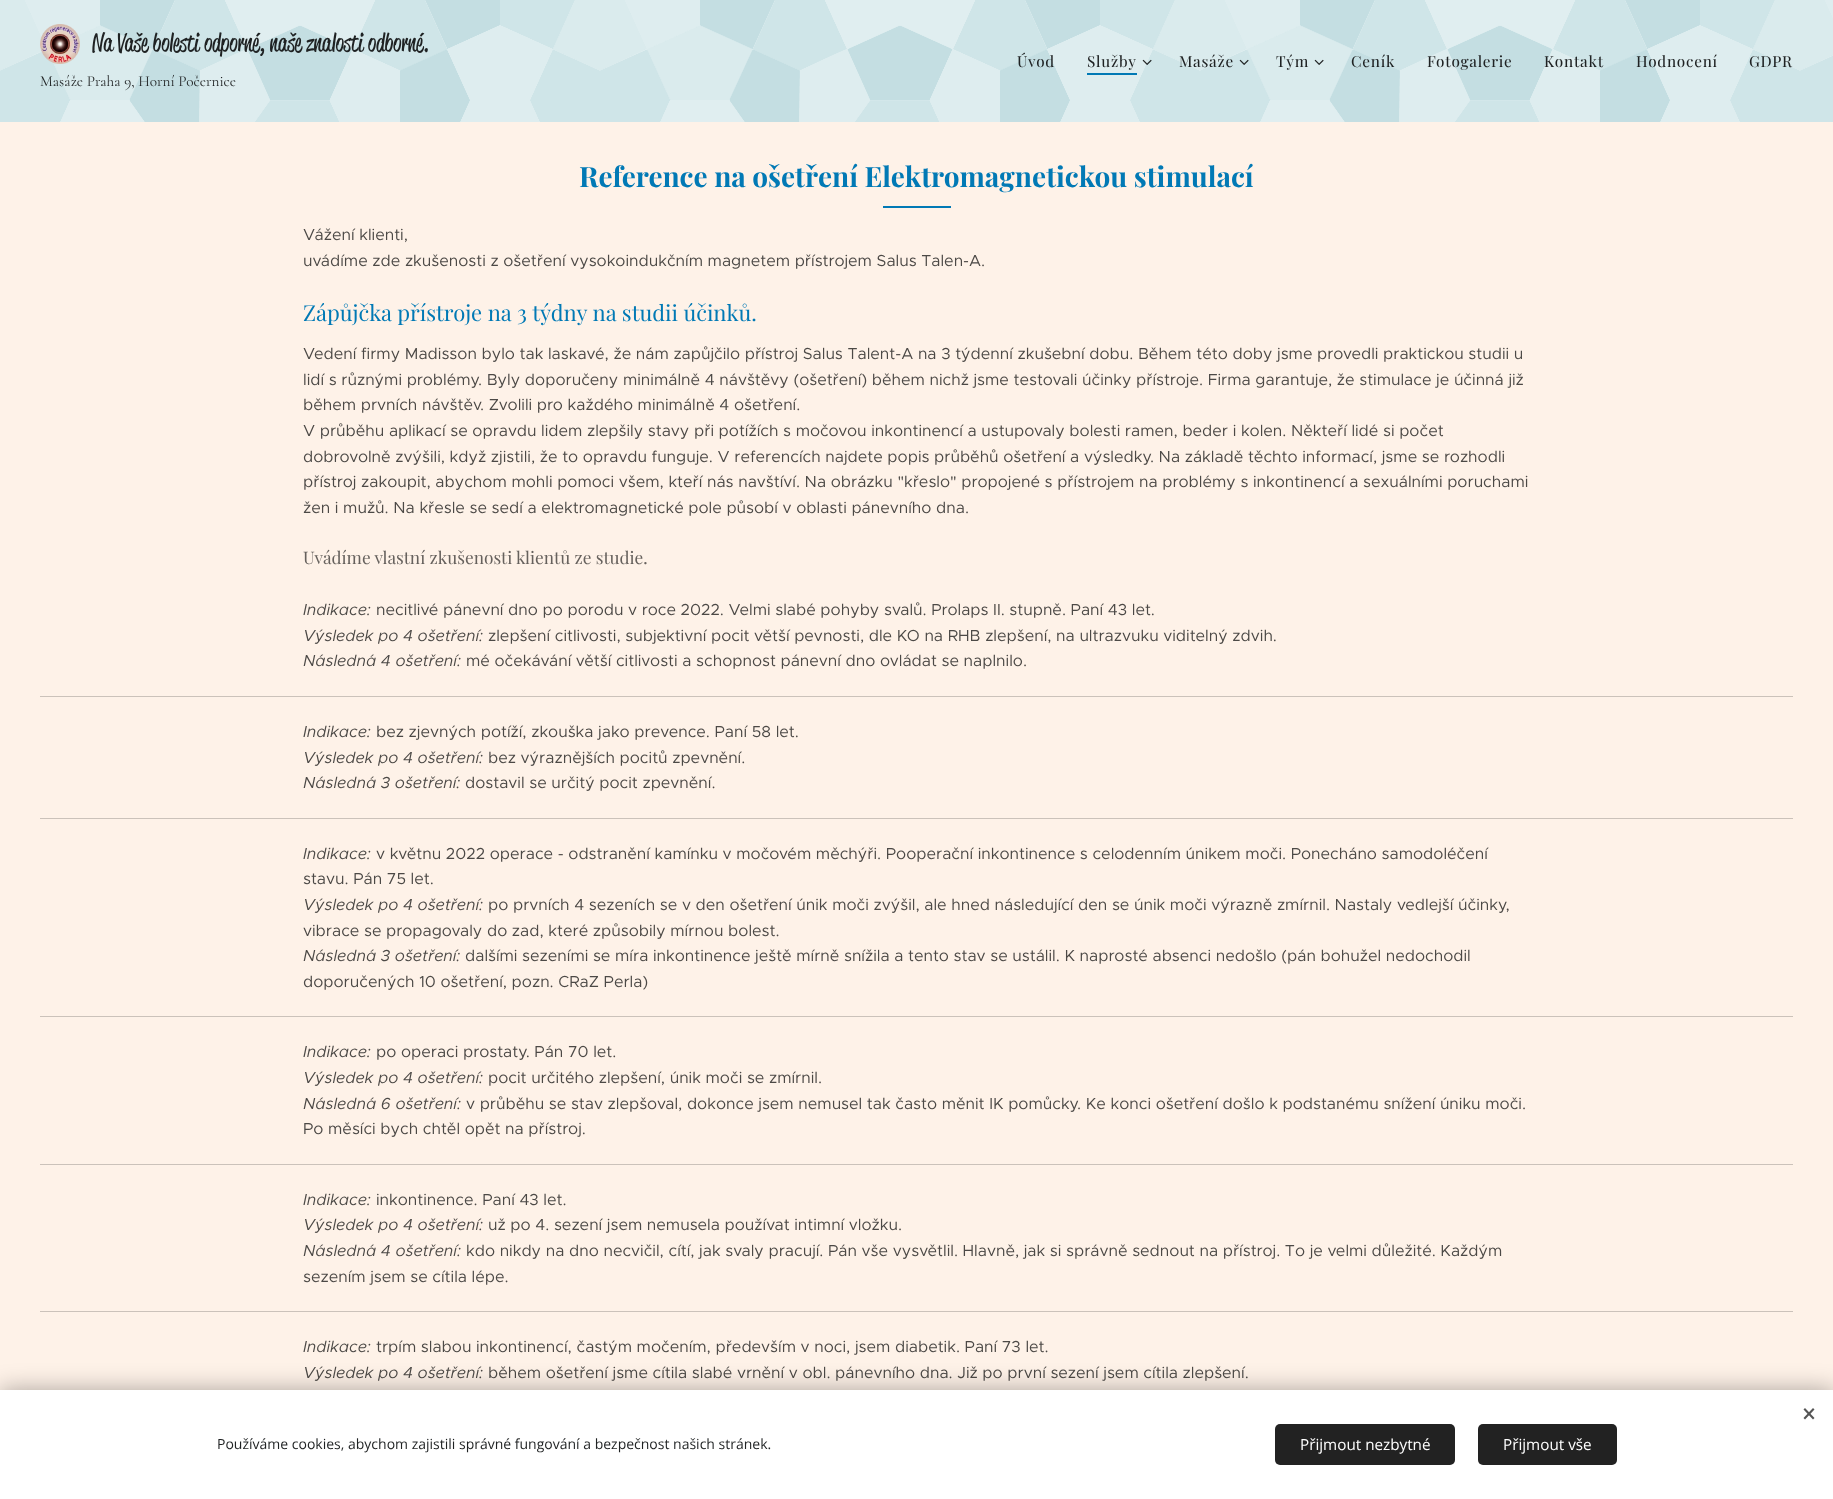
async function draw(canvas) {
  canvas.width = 1833;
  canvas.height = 1499;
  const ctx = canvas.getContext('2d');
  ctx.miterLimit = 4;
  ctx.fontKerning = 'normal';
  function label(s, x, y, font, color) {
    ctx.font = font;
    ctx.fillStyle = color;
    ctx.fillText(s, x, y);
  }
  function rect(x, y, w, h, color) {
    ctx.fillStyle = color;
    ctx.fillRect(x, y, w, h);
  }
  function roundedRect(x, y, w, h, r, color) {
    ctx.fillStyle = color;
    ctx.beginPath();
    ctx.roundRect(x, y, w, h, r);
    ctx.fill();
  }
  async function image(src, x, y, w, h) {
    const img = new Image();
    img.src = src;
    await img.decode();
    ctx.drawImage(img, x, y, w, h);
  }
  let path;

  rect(0, 0, 1833, 1499, '#fef2e8');
  await image('assets/img1.png', 0, 0, 1833, 122);
  await image('assets/img2.png', 40, 24, 40, 40);
  label('Na Vaše bolesti odporné, naše znalosti odborné.', 92, 51, '25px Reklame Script', '#1f2223');
  label('Masáže Praha 9, Horní Počernice', 40, 86, '15.25px Cormorant', '#1f2223');
  ctx.letterSpacing = '0.75px';
  label('Úvod', 1017, 67, '15.25px "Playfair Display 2"', '#1f2223');
  label('Služby', 1087, 67, '15.25px "Playfair Display 2"', '#1f2223');
  rect(1087, 73, 50, 2, '#0179b5');
  await image('assets/img3.png', 1142, 59, 10, 6);
  label('Masáže', 1179, 67, '15.25px "Playfair Display 2"', '#1f2223');
  await image('assets/img4.png', 1239, 59, 10, 6);
  label('Tým', 1276, 67, '15.25px "Playfair Display 2"', '#1f2223');
  await image('assets/img5.png', 1314, 59, 10, 6);
  label('Ceník', 1351, 67, '15.25px "Playfair Display 2"', '#1f2223');
  label('Fotogalerie', 1427, 67, '15.25px "Playfair Display 2"', '#1f2223');
  label('Kontakt', 1544, 67, '15.25px "Playfair Display 2"', '#1f2223');
  label('Hodnocení', 1636, 67, '15.25px "Playfair Display 2"', '#1f2223');
  label('GDPR', 1749, 67, '15.25px "Playfair Display 2"', '#1f2223');
  ctx.letterSpacing = '0px';
  label('Reference na ošetření Elektromagnetickou stimulací', 579, 187, 'bold 28px Playfair Display', '#0179b5');
  rect(883, 206, 68, 2, '#0179b5');
  label('Vážení klienti,', 303, 240, '16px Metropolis', '#4c4946');
  label('uvádíme zde zkušenosti z ošetření vysokoindukčním magnetem přístrojem Salus Talen-A.', 303, 266, '16px Metropolis', '#4c4946');
  label('Zápůjčka přístroje na 3 týdny na studii účinků.', 303, 321, '22px Playfair Display', '#0179b5');
  label('Vedení firmy Madisson bylo tak laskavé, že nám zapůjčilo přístroj Salus Talent-A na 3 týdenní zkušební dobu. Během této doby jsme provedli praktickou studii u', 303, 359, '16px Metropolis', '#4c4946');
  label('lidí s různými problémy. Byly doporučeny minimálně 4 návštěvy (ošetření) během nichž jsme testovali účinky přístroje. Firma garantuje, že stimulace je účinná již', 303, 385, '16px Metropolis', '#4c4946');
  label('během prvních návštěv. Zvolili pro každého minimálně 4 ošetření.', 303, 410, '16px Metropolis', '#4c4946');
  label('V průběhu aplikací se opravdu lidem zlepšily stavy při potížích s močovou inkontinencí a ustupovaly bolesti ramen, beder i kolen. Někteří lidé si počet', 303, 436, '16px Metropolis', '#4c4946');
  label('dobrovolně zvýšili, když zjistili, že to opravdu funguje. V referencích najdete popis průběhů ošetření a výsledky. Na základě těchto informací, jsme se rozhodli', 303, 462, '16px Metropolis', '#4c4946');
  label('přístroj zakoupit, abychom mohli pomoci všem, kteří nás navštíví. Na obrázku "křeslo" propojené s přístrojem na problémy s inkontinencí a sexuálními poruchami', 303, 487, '16px Metropolis', '#4c4946');
  label('žen i mužů. Na křesle se sedí a elektromagnetické pole působí v oblasti pánevního dna.', 303, 513, '16px Metropolis', '#4c4946');
  label('Uvádíme vlastní zkušenosti klientů ze studie.', 303, 564, '17.25px Playfair Display', '#66615d');
  label('Indikace:', 303, 615, 'italic 16px Metropolis', '#4c4946');
  label('necitlivé pánevní dno po porodu v roce 2022. Velmi slabé pohyby svalů. Prolaps II. stupně. Paní 43 let.', 376, 615, '16px Metropolis', '#4c4946');
  label('Výsledek po 4 ošetření:', 303, 641, 'italic 16px Metropolis', '#4c4946');
  label('zlepšení citlivosti, subjektivní pocit větší pevnosti, dle KO na RHB zlepšení, na ultrazvuku viditelný zdvih.', 488, 641, '16px Metropolis', '#4c4946');
  label('Následná 4 ošetření:', 303, 666, 'italic 16px Metropolis', '#4c4946');
  label('mé očekávání větší citlivosti a schopnost pánevní dno ovládat se naplnilo.', 466, 666, '16px Metropolis', '#4c4946');
  rect(40, 696, 1753, 1, '#cbc2ba');
  label('Indikace:', 303, 737, 'italic 16px Metropolis', '#4c4946');
  label('bez zjevných potíží, zkouška jako prevence. Paní 58 let.', 376, 737, '16px Metropolis', '#4c4946');
  label('Výsledek po 4 ošetření:', 303, 763, 'italic 16px Metropolis', '#4c4946');
  label('bez výraznějších pocitů zpevnění.', 488, 763, '16px Metropolis', '#4c4946');
  label('Následná 3 ošetření:', 303, 788, 'italic 16px Metropolis', '#4c4946');
  label('dostavil se určitý pocit zpevnění.', 465, 788, '16px Metropolis', '#4c4946');
  rect(40, 818, 1753, 1, '#cbc2ba');
  label('Indikace:', 303, 859, 'italic 16px Metropolis', '#4c4946');
  label('v květnu 2022 operace - odstranění kamínku v močovém měchýři. Pooperační inkontinence s celodenním únikem moči. Ponecháno samodoléčení', 376, 859, '16px Metropolis', '#4c4946');
  label('stavu. Pán 75 let.', 303, 884, '16px Metropolis', '#4c4946');
  label('Výsledek po 4 ošetření:', 303, 910, 'italic 16px Metropolis', '#4c4946');
  label('po prvních 4 sezeních se v den ošetření únik moči zvýšil, ale hned následující den se únik moči výrazně zmírnil. Nastaly vedlejší účinky,', 488, 910, '16px Metropolis', '#4c4946');
  label('vibrace se propagovaly do zad, které způsobily mírnou bolest.', 303, 936, '16px Metropolis', '#4c4946');
  label('Následná 3 ošetření:', 303, 961, 'italic 16px Metropolis', '#4c4946');
  label('dalšími sezeními se míra inkontinence ještě mírně snížila a tento stav se ustálil. K naprosté absenci nedošlo (pán bohužel nedochodil', 465, 961, '16px Metropolis', '#4c4946');
  label('doporučených 10 ošetření, pozn. CRaZ Perla)', 303, 987, '16px Metropolis', '#4c4946');
  rect(40, 1016, 1753, 1, '#cbc2ba');
  label('Indikace:', 303, 1057, 'italic 16px Metropolis', '#4c4946');
  label('po operaci prostaty. Pán 70 let.', 376, 1057, '16px Metropolis', '#4c4946');
  label('Výsledek po 4 ošetření:', 303, 1083, 'italic 16px Metropolis', '#4c4946');
  label('pocit určitého zlepšení, únik moči se zmírnil.', 488, 1083, '16px Metropolis', '#4c4946');
  label('Následná 6 ošetření:', 303, 1109, 'italic 16px Metropolis', '#4c4946');
  label('v průběhu se stav zlepšoval, dokonce jsem nemusel tak často měnit IK pomůcky. Ke konci ošetření došlo k podstanému snížení úniku moči.', 466, 1109, '16px Metropolis', '#4c4946');
  label('Po měsíci bych chtěl opět na přístroj.', 303, 1134, '16px Metropolis', '#4c4946');
  rect(40, 1164, 1753, 1, '#cbc2ba');
  label('Indikace:', 303, 1205, 'italic 16px Metropolis', '#4c4946');
  label('inkontinence. Paní 43 let.', 376, 1205, '16px Metropolis', '#4c4946');
  label('Výsledek po 4 ošetření:', 303, 1230, 'italic 16px Metropolis', '#4c4946');
  label('už po 4. sezení jsem nemusela používat intimní vložku.', 488, 1230, '16px Metropolis', '#4c4946');
  label('Následná 4 ošetření:', 303, 1256, 'italic 16px Metropolis', '#4c4946');
  label('kdo nikdy na dno necvičil, cítí, jak svaly pracují. Pán vše vysvětlil. Hlavně, jak si správně sednout na přístroj. To je velmi důležité. Každým', 466, 1256, '16px Metropolis', '#4c4946');
  label('sezením jsem se cítila lépe.', 303, 1282, '16px Metropolis', '#4c4946');
  rect(40, 1311, 1753, 1, '#cbc2ba');
  label('Indikace:', 303, 1352, 'italic 16px Metropolis', '#4c4946');
  label('trpím slabou inkontinencí, častým močením, především v noci, jsem diabetik. Paní 73 let.', 376, 1352, '16px Metropolis', '#4c4946');
  label('Výsledek po 4 ošetření:', 303, 1378, 'italic 16px Metropolis', '#4c4946');
  label('během ošetření jsme cítila slabé vrnění v obl. pánevního dna. Již po první sezení jsem cítila zlepšení.', 488, 1378, '16px Metropolis', '#4c4946');
  ctx.fillStyle = '#00000054';
  ctx.filter = 'blur(12.5px)';
  ctx.beginPath();
  ctx.rect(0, 1390, 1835, 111);
  ctx.fill();
  ctx.filter = 'none';
  rect(0, 1390, 1833, 109, '#fff');
  ctx.fillStyle = '#555';
  path = new Path2D('M1803.5 1418L1813 1408L1814.5 1409.5L1805 1419.5Z');
  ctx.fill(path);
  path = new Path2D('M1805 1408L1814.5 1418L1813 1419.5L1803.5 1409.5Z');
  ctx.fill(path);
  label('Používáme cookies, abychom zajistili správné fungování a bezpečnost našich stránek.', 217, 1449, '14px Open Sans', '#1f2223');
  roundedRect(1275, 1424, 180, 41, 5, '#222');
  label('Přijmout nezbytné', 1300, 1450, '15.25px Open Sans', '#fff');
  roundedRect(1478, 1424, 139, 41, 5, '#222');
  label('Přijmout vše', 1503, 1450, '15.25px Open Sans', '#fff');
}

draw(document.querySelector('canvas'));
